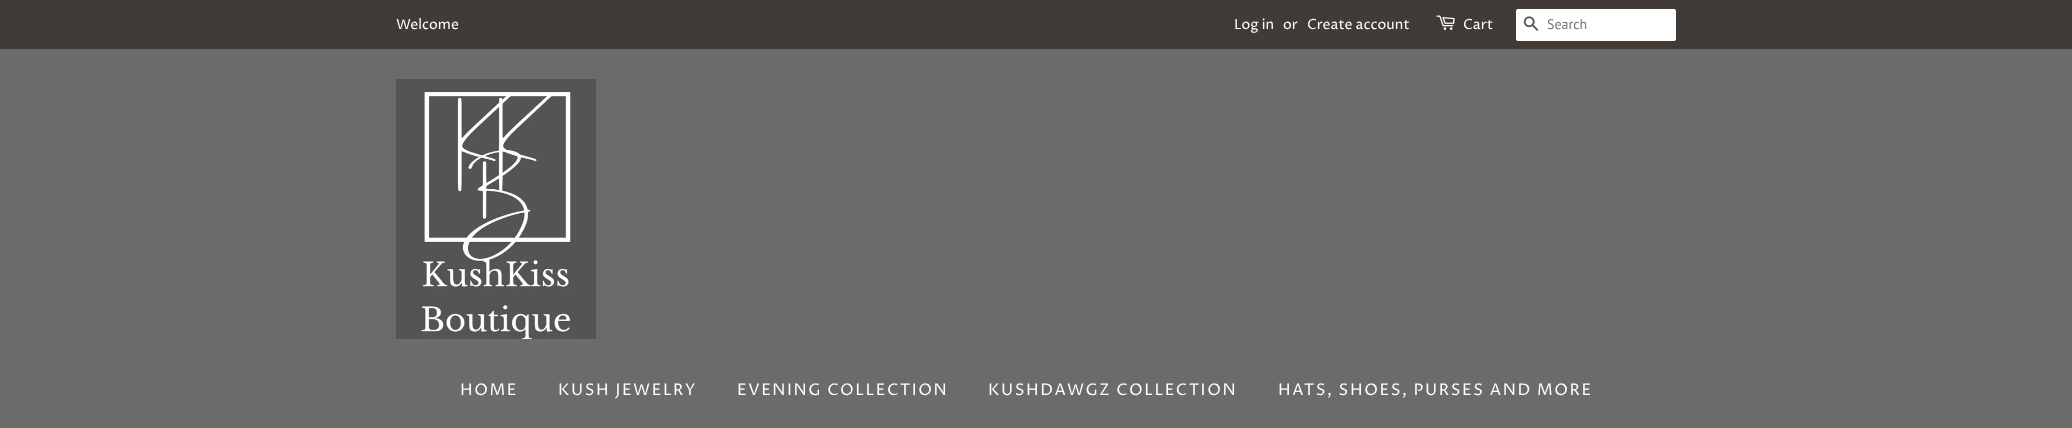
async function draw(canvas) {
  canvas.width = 2072;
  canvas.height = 428;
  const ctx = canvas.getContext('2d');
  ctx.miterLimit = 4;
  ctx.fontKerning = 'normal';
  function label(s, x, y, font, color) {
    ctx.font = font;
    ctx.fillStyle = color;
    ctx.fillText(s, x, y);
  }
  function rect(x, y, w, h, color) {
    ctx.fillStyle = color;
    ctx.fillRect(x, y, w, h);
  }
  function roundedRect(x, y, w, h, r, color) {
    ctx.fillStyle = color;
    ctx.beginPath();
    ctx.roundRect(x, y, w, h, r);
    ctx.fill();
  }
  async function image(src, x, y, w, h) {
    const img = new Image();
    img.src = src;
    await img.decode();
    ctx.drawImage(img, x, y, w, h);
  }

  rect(0, 0, 2072, 428, '#6b6b6b');
  rect(0, 0, 2072, 49, '#403b37');
  label('Welcome', 396, 29, '14px Proza Libre', '#fff');
  label('Log in', 1234, 29, '14px Proza Libre', '#fff');
  label('or', 1283, 29, '14px Proza Libre', '#fff');
  label('Create account', 1307, 29, '14px Proza Libre', '#fff');
  await image('assets/img1.png', 1436, 15, 19, 15);
  label('Cart', 1463, 29, '14px Proza Libre', '#fff');
  roundedRect(1516, 9, 160, 32, 2, '#fff');
  await image('assets/img2.png', 1523, 16, 16, 15);
  label('Search', 1547, 29, '14px PT Sans', '#757575');
  await image('assets/img3.png', 396, 79, 200, 260);
  ctx.letterSpacing = '1.6px';
  label('HOME', 460, 395, '16px Proza Libre', '#fff');
  label('KUSH JEWELRY', 558, 395, '16px Proza Libre', '#fff');
  label('EVENING COLLECTION', 737, 395, '16px Proza Libre', '#fff');
  label('KUSHDAWGZ COLLECTION', 988, 395, '16px Proza Libre', '#fff');
  label('HATS, SHOES, PURSES AND MORE', 1278, 395, '16px Proza Libre', '#fff');
}

draw(document.querySelector('canvas'));
